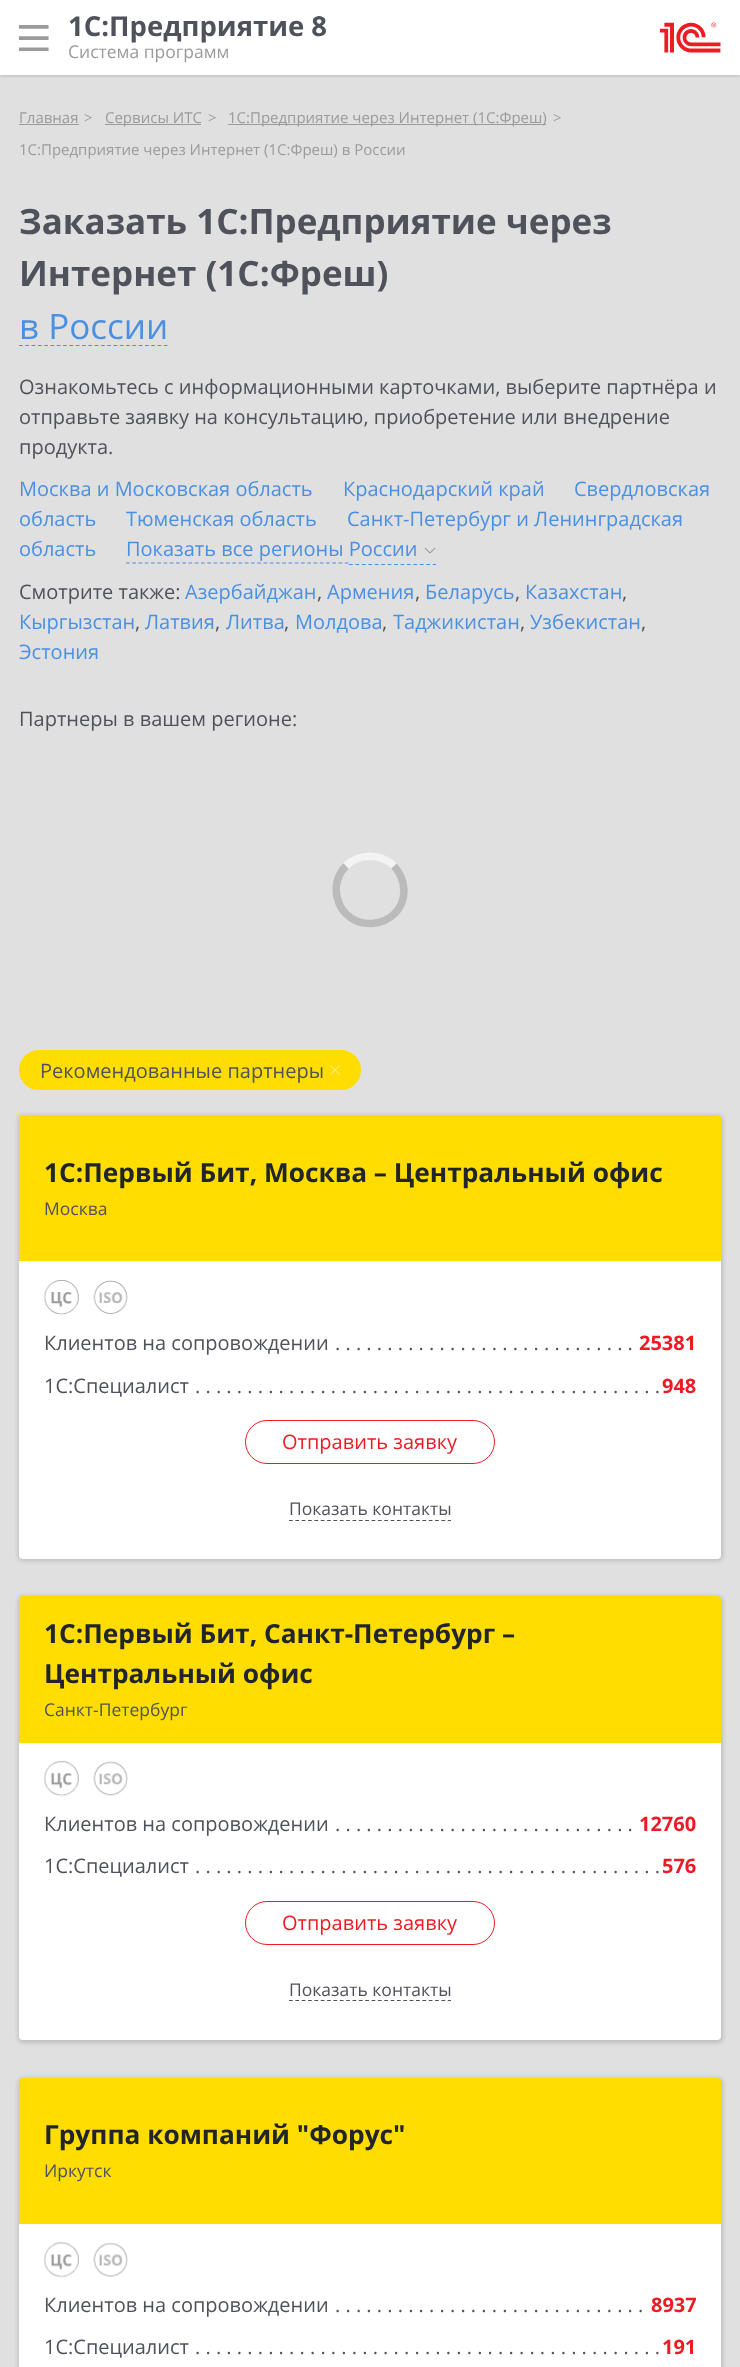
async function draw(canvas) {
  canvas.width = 740;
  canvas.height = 2367;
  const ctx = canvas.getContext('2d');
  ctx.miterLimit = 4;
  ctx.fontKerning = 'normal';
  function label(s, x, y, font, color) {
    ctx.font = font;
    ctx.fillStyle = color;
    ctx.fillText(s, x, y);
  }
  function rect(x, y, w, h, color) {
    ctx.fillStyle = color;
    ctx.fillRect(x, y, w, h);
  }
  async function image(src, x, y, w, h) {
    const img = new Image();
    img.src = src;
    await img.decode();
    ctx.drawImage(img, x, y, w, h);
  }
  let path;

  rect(0, 0, 740, 2367, '#fff');
  rect(0, 75, 740, 2292, '#e0e0e0');
  ctx.save();
  ctx.beginPath();
  ctx.rect(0, 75, 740, 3);
  ctx.clip();
  ctx.fillStyle = '#00000040';
  ctx.filter = 'blur(2.5px)';
  ctx.beginPath();
  ctx.rect(0, 0, 740, 75);
  ctx.fill();
  ctx.filter = 'none';
  ctx.restore();
  await image('assets/img1.png', 18, 25, 31, 27);
  label('1С:Предприятие 8', 68, 36, 'bold 27.5px Open Sans', '#50525b');
  label('Система программ', 68, 58, '17.5px Open Sans', '#9b9b9b');
  await image('assets/img2.png', 660, 22, 61, 31);
  label('Главная', 19, 123, '15px Open Sans', '#9b9b9b');
  rect(19, 124, 60, 1, '#9b9b9b');
  label('>', 84, 123, '15px Open Sans', '#9b9b9b');
  rect(105, 124, 96, 1, '#9b9b9b');
  label('Сервисы ИТС', 105, 123, '15px Open Sans', '#9b9b9b');
  label('>', 208, 123, '15px Open Sans', '#9b9b9b');
  rect(228, 124, 318, 1, '#9b9b9b');
  label('1С:Предприятие через Интернет (1С:Фреш)', 228, 123, '15px Open Sans', '#9b9b9b');
  label('>', 553, 123, '15px Open Sans', '#9b9b9b');
  label('1С:Предприятие через Интернет (1С:Фреш) в России', 19, 155, '15px Open Sans', '#9b9b9b');
  label('Заказать 1С:Предприятие через', 19, 234, 'bold 35px Open Sans', '#50525b');
  label('Интернет (1С:Фреш)', 19, 286, 'bold 35px Open Sans', '#50525b');
  path = new Path2D('M19 345.5H167.5');
  ctx.strokeStyle = '#4a90e2';
  ctx.lineWidth = 1.2;
  ctx.setLineDash([3.75, 2.55]);
  ctx.stroke(path);
  label('в России', 19, 339, '35px Open Sans', '#4a90e2');
  label('Ознакомьтесь с информационными карточками, выберите партнёра и', 19, 394, '20px Open Sans', '#50525b');
  label('отправьте заявку на консультацию, приобретение или внедрение', 19, 424, '20px Open Sans', '#50525b');
  label('продукта.', 19, 454, '20px Open Sans', '#50525b');
  label('Москва и Московская область', 19, 496, '20px Open Sans', '#4a90e2');
  label('Краснодарский край', 343, 496, '20px Open Sans', '#4a90e2');
  label('Свердловская', 574, 496, '20px Open Sans', '#4a90e2');
  label('область', 19, 526, '20px Open Sans', '#4a90e2');
  label('Тюменская область', 126, 526, '20px Open Sans', '#4a90e2');
  label('Санкт-Петербург и Ленинградская', 347, 526, '20px Open Sans', '#4a90e2');
  label('область', 19, 556, '20px Open Sans', '#4a90e2');
  path = new Path2D('M126 563H349');
  ctx.setLineDash([3.75, 2.5]);
  ctx.stroke(path);
  path = new Path2D('M349 564.5H436');
  ctx.setLineDash([3.75, 2.69]);
  ctx.stroke(path);
  label('Показать все регионы России', 126, 556, '20px Open Sans', '#4a90e2');
  rect(420, 563, 16, 1, '#e0e0e0');
  await image('assets/img3.png', 424, 547, 12, 7);
  label('Смотрите также:', 19, 599, '20px Open Sans', '#50525b');
  label('Азербайджан', 185, 599, '20px Open Sans', '#4a90e2');
  label(',', 317, 599, '20px Open Sans', '#50525b');
  label('Армения', 327, 599, '20px Open Sans', '#4a90e2');
  label(',', 415, 599, '20px Open Sans', '#50525b');
  label('Беларусь', 425, 599, '20px Open Sans', '#4a90e2');
  label(',', 515, 599, '20px Open Sans', '#50525b');
  label('Казахстан', 525, 599, '20px Open Sans', '#4a90e2');
  label(',', 622, 599, '20px Open Sans', '#50525b');
  label('Кыргызстан', 19, 629, '20px Open Sans', '#4a90e2');
  label(',', 135, 629, '20px Open Sans', '#50525b');
  label('Латвия', 145, 629, '20px Open Sans', '#4a90e2');
  label(',', 215, 629, '20px Open Sans', '#50525b');
  label('Литва', 226, 629, '20px Open Sans', '#4a90e2');
  label(',', 284, 629, '20px Open Sans', '#50525b');
  label('Молдова', 295, 629, '20px Open Sans', '#4a90e2');
  label(',', 382, 629, '20px Open Sans', '#50525b');
  label('Таджикистан', 393, 629, '20px Open Sans', '#4a90e2');
  label(',', 520, 629, '20px Open Sans', '#50525b');
  label('Узбекистан', 530, 629, '20px Open Sans', '#4a90e2');
  label(',', 641, 629, '20px Open Sans', '#50525b');
  label('Эстония', 19, 659, '20px Open Sans', '#4a90e2');
  label('Партнеры в вашем регионе:', 19, 726, '20px Open Sans', '#50525b');
  path = new Path2D('M346 866C359 853 381 853 394 866');
  ctx.strokeStyle = '#f3f3f3';
  ctx.lineWidth = 7.5;
  ctx.setLineDash([]);
  ctx.stroke(path);
  path = new Path2D('M394 866C400 872.5 403.5 881 404 890C404 930.5 345 936 337 896.5C334.5 885.5 338 874 346 866');
  ctx.strokeStyle = '#95959580';
  ctx.stroke(path);
  ctx.fillStyle = '#fd0';
  ctx.beginPath();
  ctx.roundRect(20.5, 1051.5, 339, 37, 18.5);
  ctx.fill();
  ctx.strokeStyle = '#fd0';
  ctx.lineWidth = 3;
  ctx.stroke();
  label('Рекомендованные партнеры', 40, 1078, '20px Open Sans', '#50525b');
  await image('assets/img4.png', 330, 1065, 10, 10);
  ctx.fillStyle = '#00000026';
  ctx.filter = 'blur(2px)';
  ctx.beginPath();
  ctx.roundRect(18, 1115, 705, 446, 5);
  ctx.fill();
  ctx.filter = 'none';
  ctx.fillStyle = '#fd0';
  ctx.beginPath();
  ctx.roundRect(19, 1115, 702, 146, [4, 4, 0, 0]);
  ctx.fill();
  label('1С:Первый Бит, Москва – Центральный офис', 44, 1182, 'bold 26.25px Open Sans', '#212529');
  label('Москва', 44, 1215, '17.5px Open Sans', '#50525b');
  ctx.fillStyle = '#fff';
  ctx.beginPath();
  ctx.roundRect(19, 1261, 702, 298, [0, 0, 4, 4]);
  ctx.fill();
  await image('assets/img5.png', 43, 1280, 36, 35);
  await image('assets/img6.png', 93, 1280, 35, 34);
  label('Клиентов на сопровождении', 44, 1350, '20px Open Sans', '#50525b');
  label('. . . . . . . . . . . . . . . . . . . . . . . . . . . . .', 335, 1350, '20px Open Sans', '#50525b');
  label('25381', 639, 1350, 'bold 20px Open Sans', '#ed1c24');
  label('1С:Специалист', 44, 1393, '20px Open Sans', '#50525b');
  label('. . . . . . . . . . . . . . . . . . . . . . . . . . . . . . . . . . . . . . . . . . . . .', 195, 1393, '20px Open Sans', '#50525b');
  label('948', 662, 1393, 'bold 20px Open Sans', '#ed1c24');
  ctx.beginPath();
  ctx.roundRect(245.5, 1420.5, 249, 43, 21.5);
  ctx.strokeStyle = '#ed1c24';
  ctx.lineWidth = 1;
  ctx.stroke();
  label('Отправить заявку', 282, 1449, '20px Open Sans', '#ed1c24');
  path = new Path2D('M289 1520.5H451');
  ctx.strokeStyle = '#50525b';
  ctx.lineWidth = 1.2;
  ctx.setLineDash([3.75, 2.6]);
  ctx.stroke(path);
  label('Показать контакты', 289, 1515, '17.5px Open Sans', '#50525b');
  ctx.fillStyle = '#00000026';
  ctx.filter = 'blur(2px)';
  ctx.beginPath();
  ctx.roundRect(18, 1596, 705, 447, 5);
  ctx.fill();
  ctx.filter = 'none';
  ctx.fillStyle = '#fd0';
  ctx.beginPath();
  ctx.roundRect(19, 1596, 702, 147, [4, 4, 0, 0]);
  ctx.fill();
  label('1С:Первый Бит, Санкт-Петербург –', 44, 1643, 'bold 26.25px Open Sans', '#212529');
  label('Центральный офис', 44, 1683, 'bold 26.25px Open Sans', '#212529');
  label('Санкт-Петербург', 44, 1716, '17.5px Open Sans', '#50525b');
  ctx.fillStyle = '#fff';
  ctx.beginPath();
  ctx.roundRect(19, 1743, 702, 297, [0, 0, 4, 4]);
  ctx.fill();
  await image('assets/img7.png', 43, 1761, 36, 36);
  await image('assets/img8.png', 93, 1761, 35, 35);
  label('Клиентов на сопровождении', 44, 1831, '20px Open Sans', '#50525b');
  label('. . . . . . . . . . . . . . . . . . . . . . . . . . . . .', 335, 1831, '20px Open Sans', '#50525b');
  label('12760', 639, 1831, 'bold 20px Open Sans', '#ed1c24');
  label('1С:Специалист', 44, 1873, '20px Open Sans', '#50525b');
  label('. . . . . . . . . . . . . . . . . . . . . . . . . . . . . . . . . . . . . . . . . . . . .', 195, 1873, '20px Open Sans', '#50525b');
  label('576', 662, 1873, 'bold 20px Open Sans', '#ed1c24');
  ctx.beginPath();
  ctx.roundRect(245.5, 1901.5, 249, 43, 21.5);
  ctx.strokeStyle = '#ed1c24';
  ctx.lineWidth = 1;
  ctx.setLineDash([]);
  ctx.stroke();
  label('Отправить заявку', 282, 1930, '20px Open Sans', '#ed1c24');
  path = new Path2D('M289 2000.5H451');
  ctx.strokeStyle = '#50525b';
  ctx.lineWidth = 1.2;
  ctx.setLineDash([3.75, 2.6]);
  ctx.stroke(path);
  label('Показать контакты', 289, 1996, '17.5px Open Sans', '#50525b');
  ctx.fillStyle = '#00000026';
  ctx.filter = 'blur(2px)';
  ctx.beginPath();
  ctx.roundRect(18, 2078, 705, 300, 5);
  ctx.fill();
  ctx.filter = 'none';
  ctx.fillStyle = '#fd0';
  ctx.beginPath();
  ctx.roundRect(19, 2078, 702, 146, [4, 4, 0, 0]);
  ctx.fill();
  label('Группа компаний "Форус"', 44, 2144, 'bold 26.25px Open Sans', '#212529');
  label('Иркутск', 44, 2177, '17.5px Open Sans', '#50525b');
  rect(19, 2224, 702, 143, '#fff');
  await image('assets/img9.png', 43, 2242, 36, 36);
  await image('assets/img10.png', 93, 2242, 35, 35);
  label('Клиентов на сопровождении', 44, 2312, '20px Open Sans', '#50525b');
  label('. . . . . . . . . . . . . . . . . . . . . . . . . . . . . .', 335, 2312, '20px Open Sans', '#50525b');
  label('8937', 651, 2312, 'bold 20px Open Sans', '#ed1c24');
  label('1С:Специалист', 44, 2354, '20px Open Sans', '#50525b');
  label('. . . . . . . . . . . . . . . . . . . . . . . . . . . . . . . . . . . . . . . . . . . . .', 195, 2354, '20px Open Sans', '#50525b');
  label('191', 662, 2354, 'bold 20px Open Sans', '#ed1c24');
}

draw(document.querySelector('canvas'));
